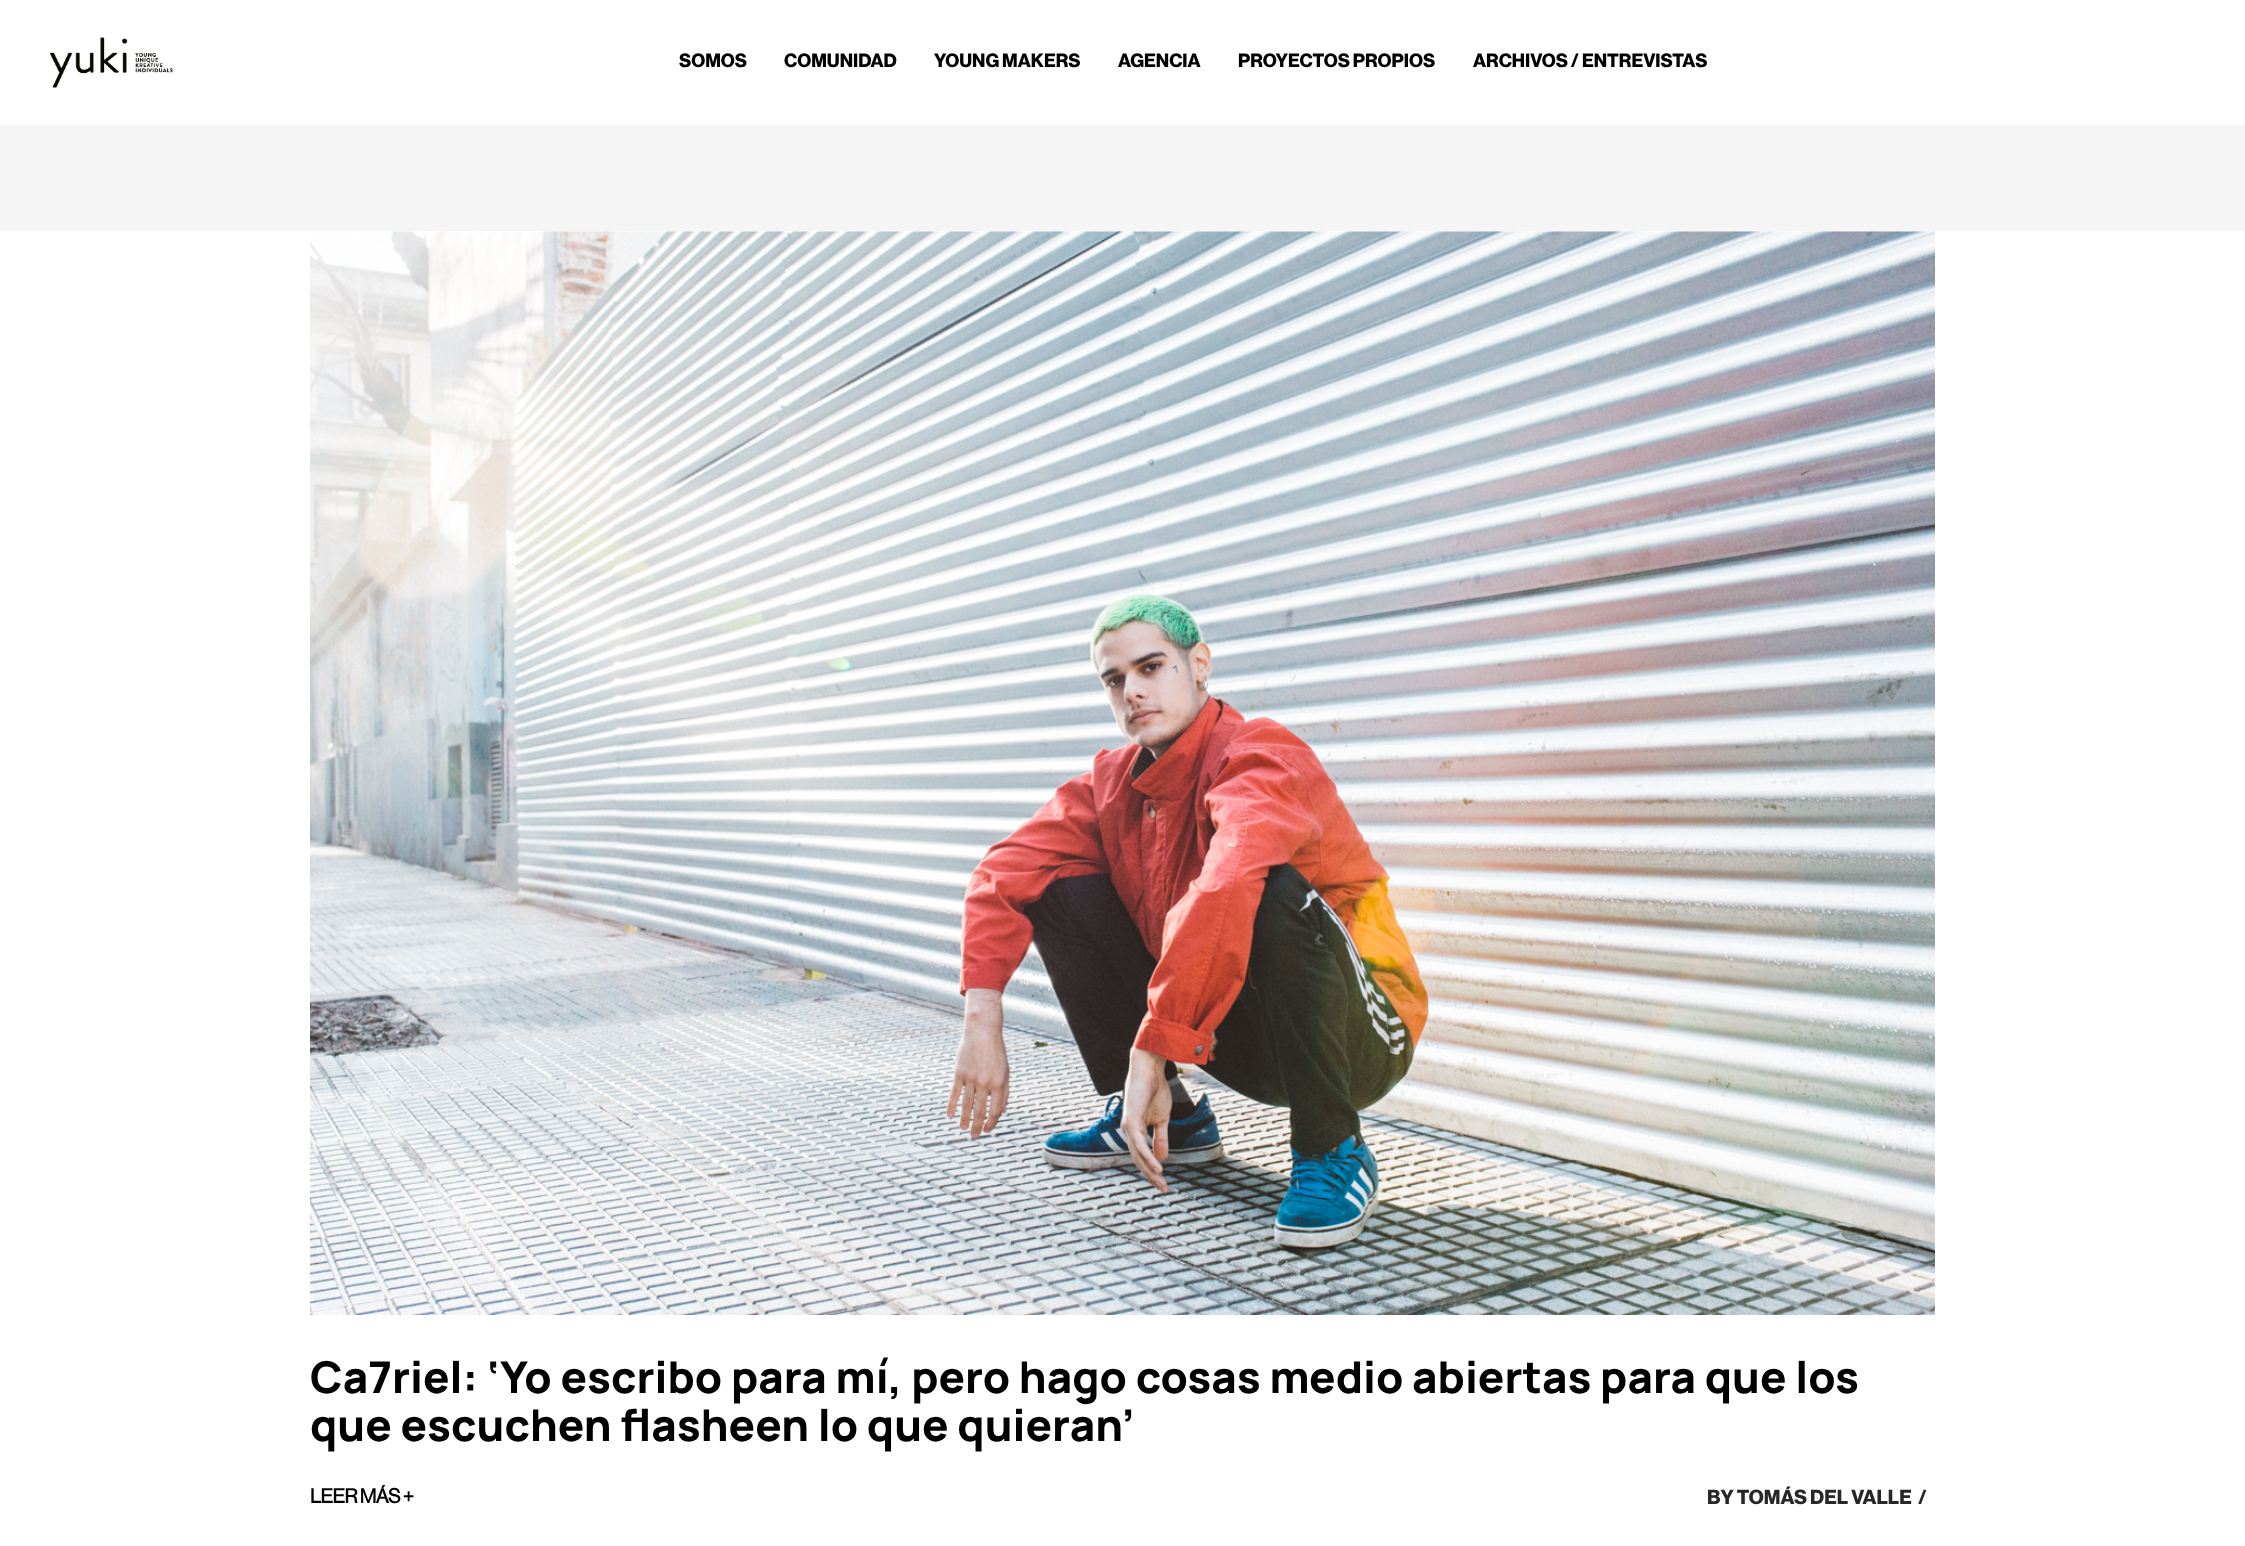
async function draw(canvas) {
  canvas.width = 2245;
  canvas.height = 1546;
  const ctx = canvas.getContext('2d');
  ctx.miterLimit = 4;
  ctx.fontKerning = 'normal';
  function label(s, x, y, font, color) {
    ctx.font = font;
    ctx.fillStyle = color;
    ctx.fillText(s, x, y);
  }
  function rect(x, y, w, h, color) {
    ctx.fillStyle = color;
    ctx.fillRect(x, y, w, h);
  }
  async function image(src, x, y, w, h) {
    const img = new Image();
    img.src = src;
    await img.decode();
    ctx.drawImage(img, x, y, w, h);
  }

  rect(0, 0, 2245, 1546, '#fff');
  await image('assets/img1.png', 50, 37, 123, 51);
  label('SOMOS', 679, 67, 'bold 18.75px "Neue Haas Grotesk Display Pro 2"', '#000');
  label('COMUNIDAD', 784, 67, 'bold 18.75px "Neue Haas Grotesk Display Pro 2"', '#000');
  label('YOUNG MAKERS', 934, 67, 'bold 18.75px "Neue Haas Grotesk Display Pro 2"', '#000');
  label('AGENCIA', 1118, 67, 'bold 18.75px "Neue Haas Grotesk Display Pro 2"', '#000');
  label('PROYECTOS PROPIOS', 1238, 67, 'bold 18.75px "Neue Haas Grotesk Display Pro 2"', '#000');
  label('ARCHIVOS / ENTREVISTAS', 1473, 67, 'bold 18.75px "Neue Haas Grotesk Display Pro 2"', '#000');
  rect(0, 125, 2245, 106, '#f5f5f5');
  await image('assets/img2.png', 310, 231, 1625, 1084);
  label('Ca7riel: ‘Yo escribo para mí, pero hago cosas medio abiertas para que los', 310, 1393, '800 43.75px Manrope', '#000');
  label('que escuchen flasheen lo que quieran’', 310, 1441, '800 43.75px Manrope', '#000');
  ctx.letterSpacing = '-0.5px';
  label('LEER MÁS +', 310, 1503, 'bold 20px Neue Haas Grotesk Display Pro', '#000');
  ctx.letterSpacing = '0px';
  label('BY TOMÁS DEL VALLE', 1707, 1504, 'bold 20px "Neue Haas Grotesk Display Pro 2"', '#272727');
  label('/', 1918, 1504, 'bold 20px "Neue Haas Grotesk Display Pro 2"', '#272727');
}

draw(document.querySelector('canvas'));
